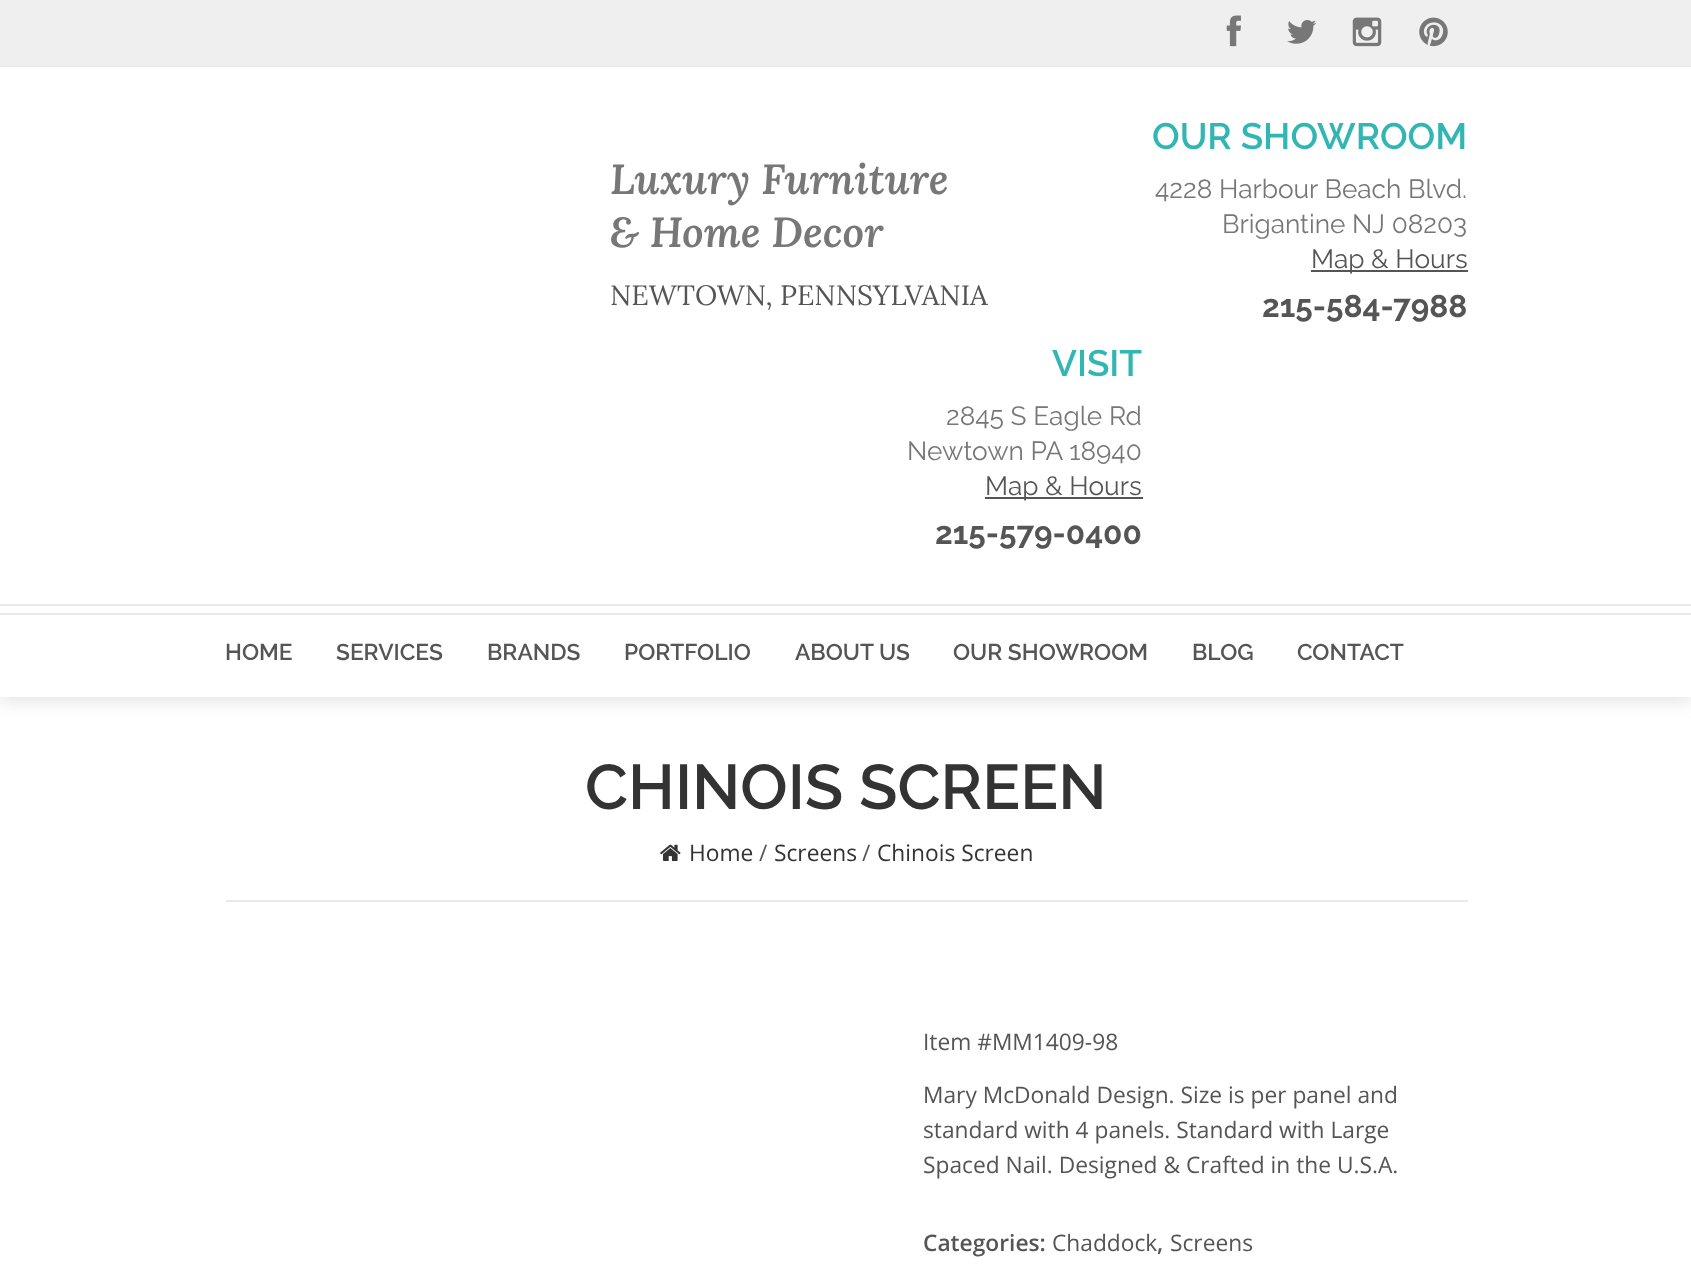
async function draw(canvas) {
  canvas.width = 1691;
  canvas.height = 1276;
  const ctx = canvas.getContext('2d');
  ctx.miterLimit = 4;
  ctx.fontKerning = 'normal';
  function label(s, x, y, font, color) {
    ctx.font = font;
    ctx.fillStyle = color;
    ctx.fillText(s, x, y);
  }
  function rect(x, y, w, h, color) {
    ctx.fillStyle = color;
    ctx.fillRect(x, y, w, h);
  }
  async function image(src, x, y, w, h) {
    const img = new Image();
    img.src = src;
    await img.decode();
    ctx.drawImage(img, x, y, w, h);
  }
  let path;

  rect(0, 0, 1691, 1276, '#fff');
  ctx.save();
  path = new Path2D('M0 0H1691V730H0ZM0 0H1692V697H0Z');
  ctx.clip(path, 'evenodd');
  ctx.fillStyle = '#0000001a';
  ctx.filter = 'blur(9px)';
  ctx.beginPath();
  ctx.rect(0, 5, 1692, 697);
  ctx.fill();
  ctx.filter = 'none';
  ctx.restore();
  rect(0, 0, 1691, 65, '#efefef');
  rect(0, 65, 1691, 2, '#eaeaea');
  await image('assets/img1.png', 1226, 15, 15, 32);
  await image('assets/img2.png', 1287, 20, 29, 24);
  await image('assets/img3.png', 1352, 17, 30, 30);
  await image('assets/img4.png', 1419, 17, 29, 30);
  label('Luxury Furniture', 610, 194, 'italic 600 42px Lora', '#777');
  label('& Home Decor', 610, 247, 'italic 600 42px Lora', '#777');
  label('NEWTOWN, PENNSYLVANIA', 610, 305, '28px Lora', '#555');
  label('OUR SHOWROOM', 1152, 149, '600 36.75px Raleway', '#31b6b3');
  label('4228 Harbour Beach Blvd.', 1155, 198, '26.25px Raleway', '#777');
  label('Brigantine NJ 08203', 1222, 233, '26.25px Raleway', '#777');
  rect(1311, 270, 157, 2, '#555');
  label('Map & Hours', 1311, 268, '26.25px Raleway', '#555');
  label('215-584-7988', 1262, 317, 'bold 31.5px Raleway', '#555');
  label('VISIT', 1052, 376, '600 36.75px Raleway', '#31b6b3');
  label('2845 S Eagle Rd', 946, 425, '26.25px Raleway', '#777');
  label('Newtown PA 18940', 907, 460, '26.25px Raleway', '#777');
  rect(985, 497, 158, 2, '#555');
  label('Map & Hours', 985, 495, '26.25px Raleway', '#555');
  label('215-579-0400', 935, 544, 'bold 31.5px Raleway', '#555');
  rect(0, 604, 1691, 2, '#eaeaea');
  rect(0, 613, 1691, 2, '#eaeaea');
  label('HOME', 225, 660, '600 22.75px Raleway', '#555');
  label('SERVICES', 336, 660, '600 22.75px Raleway', '#555');
  label('BRANDS', 487, 660, '600 22.75px Raleway', '#555');
  label('PORTFOLIO', 624, 660, '600 22.75px Raleway', '#555');
  label('ABOUT US', 795, 660, '600 22.75px Raleway', '#555');
  label('OUR SHOWROOM', 953, 660, '600 22.75px Raleway', '#555');
  label('BLOG', 1192, 660, '600 22.75px Raleway', '#555');
  label('CONTACT', 1297, 660, '600 22.75px Raleway', '#555');
  rect(226, 900, 1242, 2, '#eaeaea');
  label('CHINOIS SCREEN', 585, 809, '600 63px Raleway', '#333');
  await image('assets/img5.png', 660, 844, 21, 17);
  label('Home', 689, 861, '22.75px Open Sans', '#333');
  label('/', 759, 861, '22.75px Open Sans', '#555');
  label('Screens', 774, 861, '22.75px Open Sans', '#333');
  label('/', 862, 861, '22.75px Open Sans', '#555');
  label('Chinois Screen', 877, 861, '22.75px Open Sans', '#333');
  label('Item #MM1409-98', 923, 1050, '22.75px Open Sans', '#555');
  label('Mary McDonald Design. Size is per panel and', 923, 1103, '22.75px Open Sans', '#555');
  label('standard with 4 panels. Standard with Large', 923, 1138, '22.75px Open Sans', '#555');
  label('Spaced Nail. Designed & Crafted in the U.S.A.', 923, 1173, '22.75px Open Sans', '#555');
  label('Categories:', 923, 1251, '600 22.75px Open Sans', '#555');
  label('Chaddock', 1052, 1251, '22.75px Open Sans', '#555');
  label(',', 1157, 1251, '600 22.75px Open Sans', '#555');
  label('Screens', 1170, 1251, '22.75px Open Sans', '#555');
}

draw(document.querySelector('canvas'));
